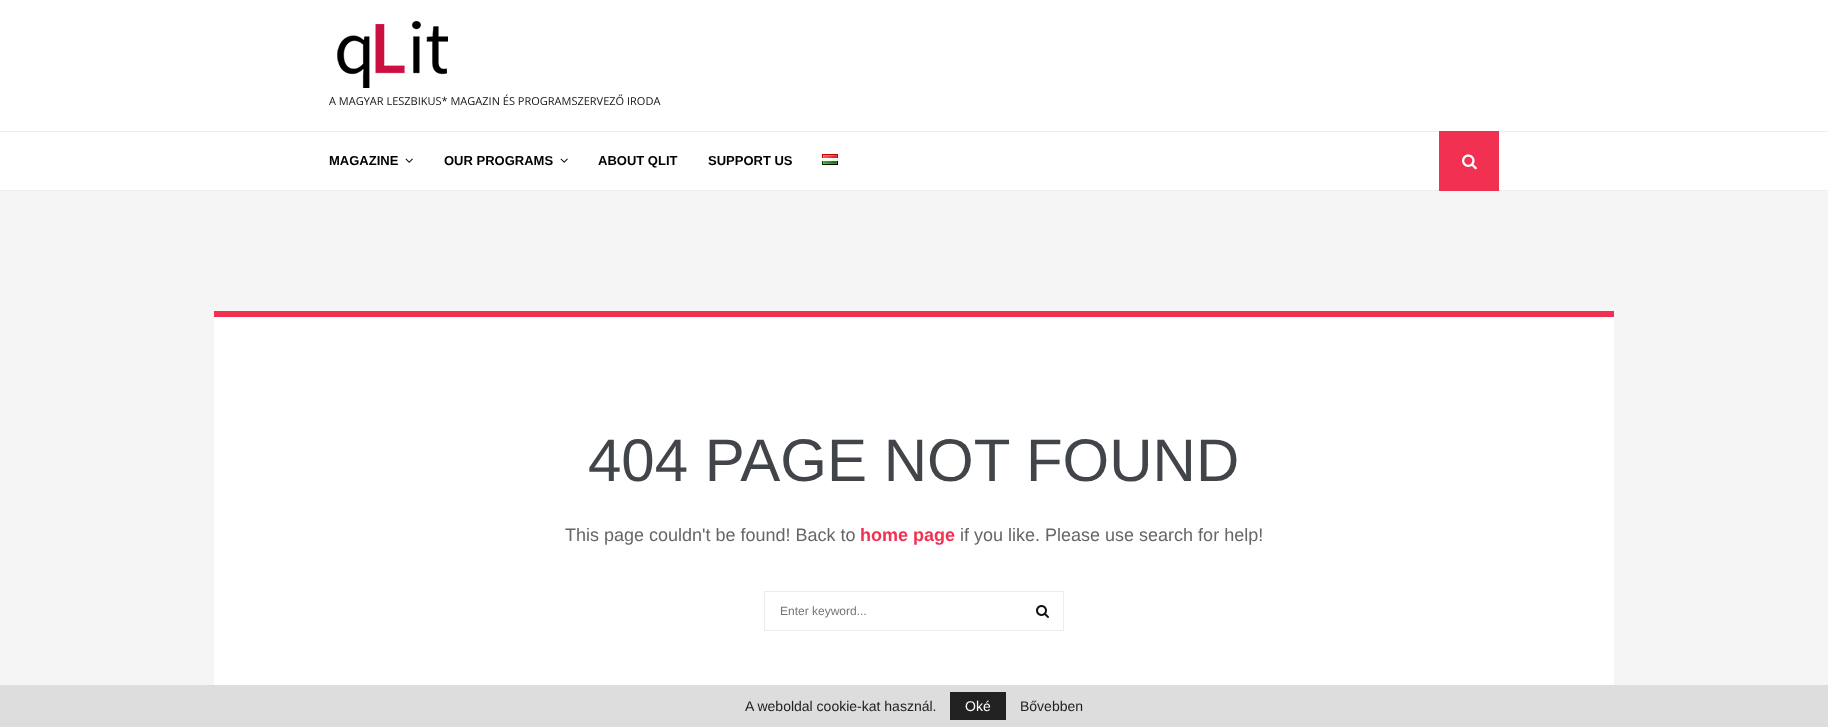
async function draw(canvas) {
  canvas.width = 1828;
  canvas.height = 727;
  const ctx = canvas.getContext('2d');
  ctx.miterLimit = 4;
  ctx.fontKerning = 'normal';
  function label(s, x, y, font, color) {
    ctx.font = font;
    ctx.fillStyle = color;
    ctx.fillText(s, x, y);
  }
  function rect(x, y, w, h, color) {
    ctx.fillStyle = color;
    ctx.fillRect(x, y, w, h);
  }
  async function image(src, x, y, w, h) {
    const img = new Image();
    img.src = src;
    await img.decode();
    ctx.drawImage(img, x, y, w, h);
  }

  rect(0, 0, 1828, 727, '#f5f5f5');
  rect(0, 0, 1828, 131, '#fff');
  await image('assets/img1.png', 337, 21, 111, 67);
  label('A MAGYAR LESZBIKUS* MAGAZIN ÉS PROGRAMSZERVEZŐ IRODA', 329, 105, '11px Open Sans', '#111');
  rect(0, 132, 1828, 58, '#fff');
  rect(0, 190, 1828, 1, '#eee');
  rect(0, 131, 1828, 1, '#eee');
  label('MAGAZINE', 329, 165, 'bold 13px Liberation Sans', '#000');
  await image('assets/img2.png', 405, 158, 8, 5);
  label('OUR PROGRAMS', 444, 165, 'bold 13px Liberation Sans', '#000');
  await image('assets/img2.png', 560, 158, 8, 5);
  label('ABOUT QLIT', 598, 165, 'bold 13px Liberation Sans', '#000');
  label('SUPPORT US', 708, 165, 'bold 13px Liberation Sans', '#000');
  await image('assets/img3.png', 822, 154, 16, 11);
  rect(1439, 131, 60, 60, '#f23051');
  await image('assets/img4.png', 1462, 154, 15, 16);
  rect(214, 317, 1400, 368, '#fff');
  rect(214, 311, 1400, 6, '#f23051');
  label('404 PAGE NOT FOUND', 588, 481, '60px Liberation Sans', '#414549');
  label('This page couldn\'t be found! Back to', 565, 541, '18px Liberation Sans', '#666');
  label('home page', 860, 541, 'bold 18px Liberation Sans', '#f23051');
  label('if you like. Please use search for help!', 960, 541, '18px Liberation Sans', '#666');
  ctx.strokeStyle = '#ececec';
  ctx.strokeRect(764.5, 591.5, 299, 39);
  label('Enter keyword...', 780, 615, '12px Liberation Sans', '#757575');
  await image('assets/img5.png', 1036, 605, 13, 13);
  rect(0, 685, 1828, 42, '#ddd');
  label('A weboldal cookie-kat használ.', 745, 711, '14px Liberation Sans', '#212121');
  rect(950, 692, 56, 28, '#212121');
  label('Oké', 965, 711, '14px Liberation Sans', '#fff');
  label('Bővebben', 1020, 711, '14px Liberation Sans', '#212121');
}

draw(document.querySelector('canvas'));
